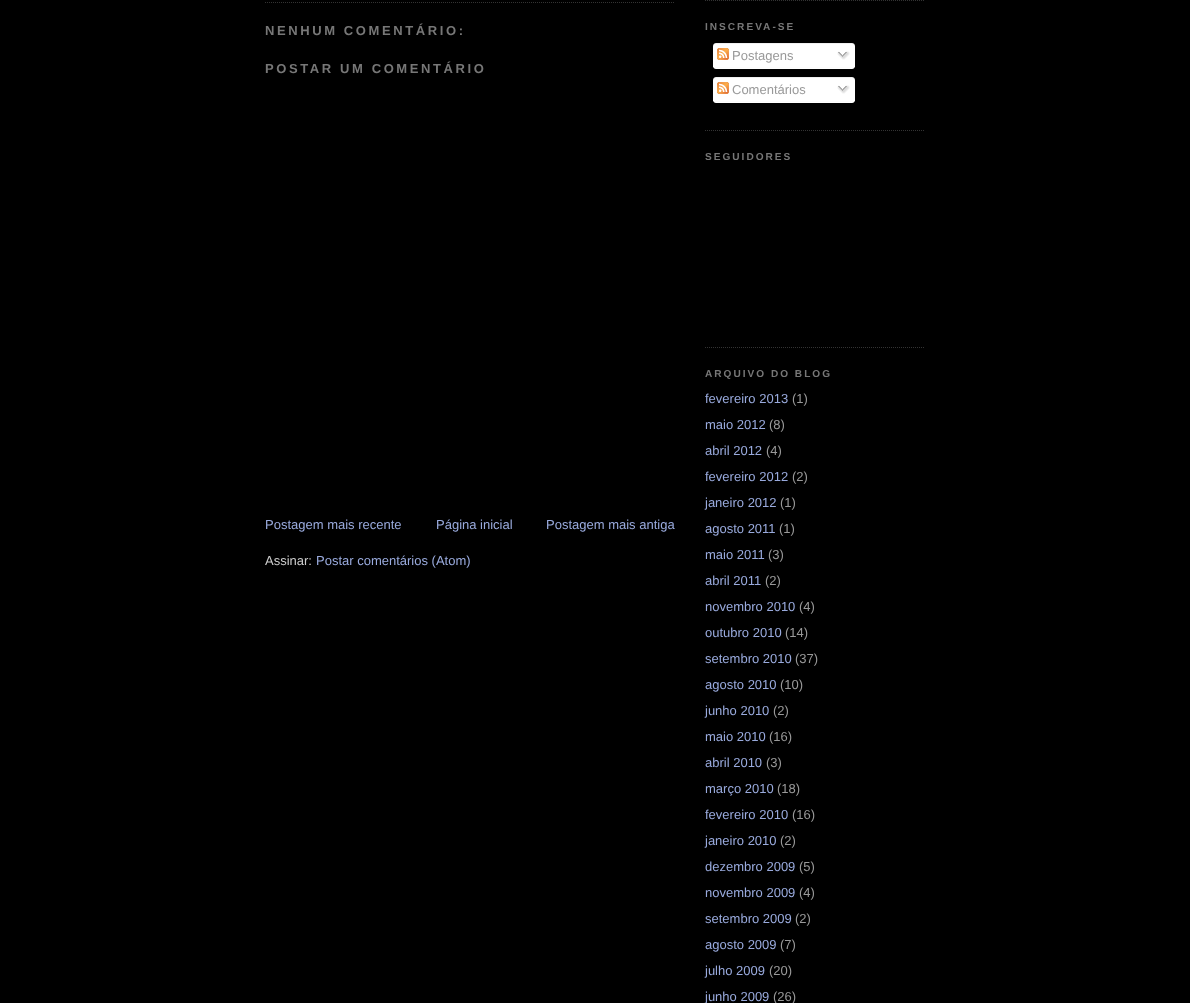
async function draw(canvas) {
  canvas.width = 1190;
  canvas.height = 1003;
  const ctx = canvas.getContext('2d');
  ctx.miterLimit = 4;
  ctx.fontKerning = 'normal';
  function label(s, x, y, font, color) {
    ctx.font = font;
    ctx.fillStyle = color;
    ctx.fillText(s, x, y);
  }
  function rect(x, y, w, h, color) {
    ctx.fillStyle = color;
    ctx.fillRect(x, y, w, h);
  }
  async function image(src, x, y, w, h) {
    const img = new Image();
    img.src = src;
    await img.decode();
    ctx.drawImage(img, x, y, w, h);
  }
  let path;

  rect(0, 0, 1190, 1003, '#000');
  path = new Path2D('M265 2.5H675');
  ctx.strokeStyle = '#333';
  ctx.setLineDash([1, 1]);
  ctx.stroke(path);
  ctx.letterSpacing = '2.6px';
  label('NENHUM COMENTÁRIO:', 265, 35, 'bold 13px Liberation Sans', '#777');
  label('POSTAR UM COMENTÁRIO', 265, 73, 'bold 13px Liberation Sans', '#777');
  ctx.letterSpacing = '0px';
  label('Postagem mais recente', 265, 529, '13px Liberation Sans', '#9ad');
  label('Página inicial', 436, 529, '13px Liberation Sans', '#9ad');
  label('Postagem mais antiga', 546, 529, '13px Liberation Sans', '#9ad');
  label('Assinar:', 265, 565, '13px Liberation Sans', '#ccc');
  label('Postar comentários (Atom)', 316, 565, '13px Liberation Sans', '#9ad');
  path = new Path2D('M705 .5H925');
  ctx.stroke(path);
  path = new Path2D('M705 130.5H925');
  ctx.stroke(path);
  ctx.letterSpacing = '2px';
  label('INSCREVA-SE', 705, 30, 'bold 10.1px Liberation Sans', '#777');
  await image('assets/img1.png', 713, 43, 142, 24);
  await image('assets/img2.png', 717, 48, 12, 12);
  ctx.letterSpacing = '0px';
  label('Postagens', 732, 60, '13px Liberation Sans', '#999');
  await image('assets/img3.png', 837, 51, 13, 9);
  await image('assets/img4.png', 713, 67, 142, 2);
  await image('assets/img1.png', 713, 77, 142, 24);
  await image('assets/img2.png', 717, 82, 12, 12);
  label('Comentários', 732, 94, '13px Liberation Sans', '#999');
  await image('assets/img3.png', 837, 85, 13, 9);
  await image('assets/img4.png', 713, 101, 142, 2);
  path = new Path2D('M705 347.5H925');
  ctx.stroke(path);
  ctx.letterSpacing = '2px';
  label('SEGUIDORES', 705, 160, 'bold 10.1px Liberation Sans', '#777');
  label('ARQUIVO DO BLOG', 705, 377, 'bold 10.1px Liberation Sans', '#777');
  ctx.letterSpacing = '0px';
  label('fevereiro 2013', 705, 403, '13px Liberation Sans', '#9ad');
  label('(1)', 792, 403, '13px Liberation Sans', '#999');
  label('maio 2012', 705, 429, '13px Liberation Sans', '#9ad');
  label('(8)', 769, 429, '13px Liberation Sans', '#999');
  label('abril 2012', 705, 455, '13px Liberation Sans', '#9ad');
  label('(4)', 766, 455, '13px Liberation Sans', '#999');
  label('fevereiro 2012', 705, 481, '13px Liberation Sans', '#9ad');
  label('(2)', 792, 481, '13px Liberation Sans', '#999');
  label('janeiro 2012', 705, 507, '13px Liberation Sans', '#9ad');
  label('(1)', 780, 507, '13px Liberation Sans', '#999');
  label('agosto 2011', 705, 533, '13px Liberation Sans', '#9ad');
  label('(1)', 779, 533, '13px Liberation Sans', '#999');
  label('maio 2011', 705, 559, '13px Liberation Sans', '#9ad');
  label('(3)', 768, 559, '13px Liberation Sans', '#999');
  label('abril 2011', 705, 585, '13px Liberation Sans', '#9ad');
  label('(2)', 765, 585, '13px Liberation Sans', '#999');
  label('novembro 2010', 705, 611, '13px Liberation Sans', '#9ad');
  label('(4)', 799, 611, '13px Liberation Sans', '#999');
  label('outubro 2010', 705, 637, '13px Liberation Sans', '#9ad');
  label('(14)', 785, 637, '13px Liberation Sans', '#999');
  label('setembro 2010', 705, 663, '13px Liberation Sans', '#9ad');
  label('(37)', 795, 663, '13px Liberation Sans', '#999');
  label('agosto 2010', 705, 689, '13px Liberation Sans', '#9ad');
  label('(10)', 780, 689, '13px Liberation Sans', '#999');
  label('junho 2010', 705, 715, '13px Liberation Sans', '#9ad');
  label('(2)', 773, 715, '13px Liberation Sans', '#999');
  label('maio 2010', 705, 741, '13px Liberation Sans', '#9ad');
  label('(16)', 769, 741, '13px Liberation Sans', '#999');
  label('abril 2010', 705, 767, '13px Liberation Sans', '#9ad');
  label('(3)', 766, 767, '13px Liberation Sans', '#999');
  label('março 2010', 705, 793, '13px Liberation Sans', '#9ad');
  label('(18)', 777, 793, '13px Liberation Sans', '#999');
  label('fevereiro 2010', 705, 819, '13px Liberation Sans', '#9ad');
  label('(16)', 792, 819, '13px Liberation Sans', '#999');
  label('janeiro 2010', 705, 845, '13px Liberation Sans', '#9ad');
  label('(2)', 780, 845, '13px Liberation Sans', '#999');
  label('dezembro 2009', 705, 871, '13px Liberation Sans', '#9ad');
  label('(5)', 799, 871, '13px Liberation Sans', '#999');
  label('novembro 2009', 705, 897, '13px Liberation Sans', '#9ad');
  label('(4)', 799, 897, '13px Liberation Sans', '#999');
  label('setembro 2009', 705, 923, '13px Liberation Sans', '#9ad');
  label('(2)', 795, 923, '13px Liberation Sans', '#999');
  label('agosto 2009', 705, 949, '13px Liberation Sans', '#9ad');
  label('(7)', 780, 949, '13px Liberation Sans', '#999');
  label('julho 2009', 705, 975, '13px Liberation Sans', '#9ad');
  label('(20)', 769, 975, '13px Liberation Sans', '#999');
  label('junho 2009', 705, 1001, '13px Liberation Sans', '#9ad');
  label('(26)', 773, 1001, '13px Liberation Sans', '#999');
}

draw(document.querySelector('canvas'));
